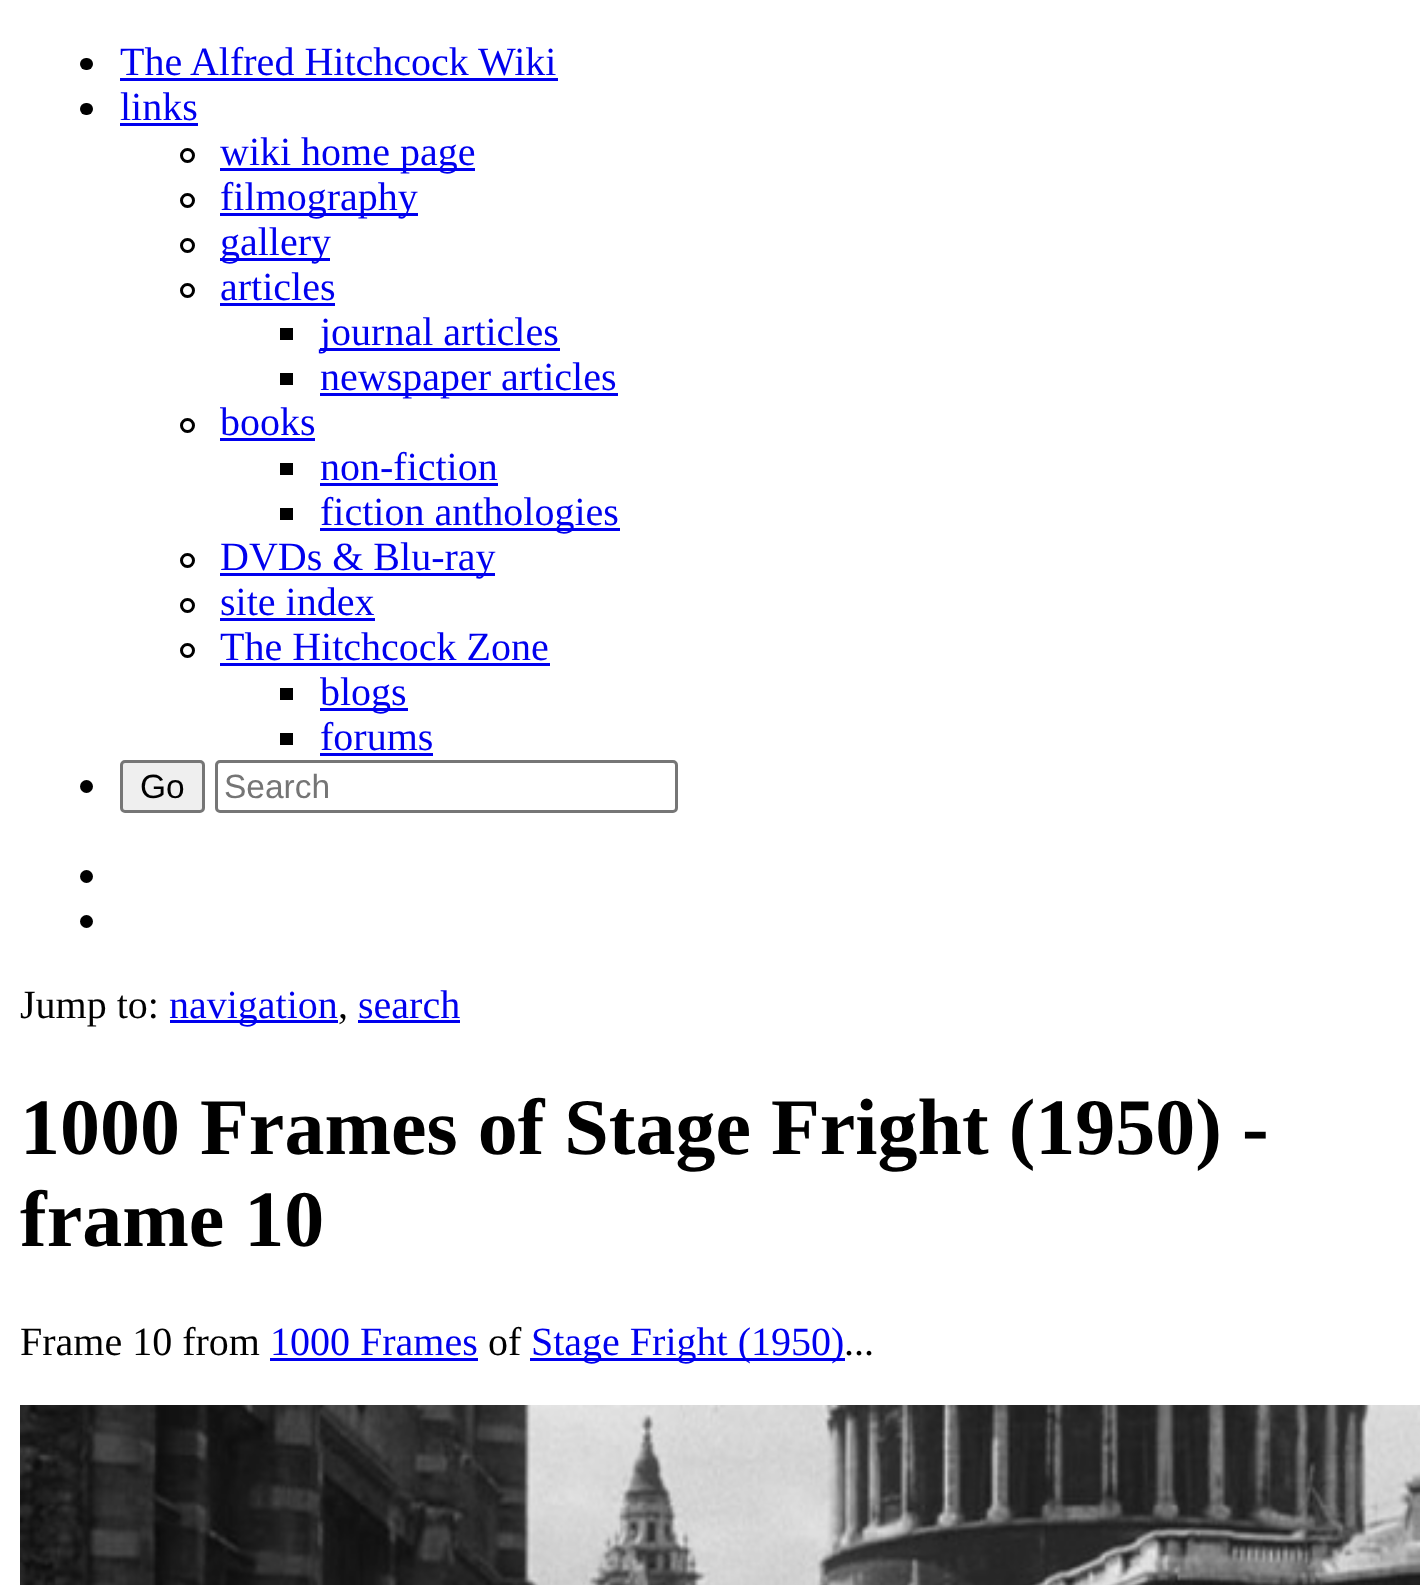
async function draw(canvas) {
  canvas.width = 1420;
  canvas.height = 1585;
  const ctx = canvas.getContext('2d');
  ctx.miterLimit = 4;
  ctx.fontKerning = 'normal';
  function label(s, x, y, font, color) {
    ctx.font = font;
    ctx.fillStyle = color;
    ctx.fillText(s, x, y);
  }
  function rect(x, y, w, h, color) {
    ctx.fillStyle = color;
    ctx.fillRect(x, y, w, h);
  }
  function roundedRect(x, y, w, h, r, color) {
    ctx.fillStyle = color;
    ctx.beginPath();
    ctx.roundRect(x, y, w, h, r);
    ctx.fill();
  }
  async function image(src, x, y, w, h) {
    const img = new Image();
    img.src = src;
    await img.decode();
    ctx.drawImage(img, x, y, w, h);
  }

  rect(0, 0, 1420, 1585, '#fff');
  roundedRect(80, 58, 13, 12, 6, '#000');
  label('The Alfred Hitchcock Wiki', 120, 75, '40px Liberation Serif', '#00e');
  rect(120, 78, 438, 3, '#00e');
  roundedRect(80, 103, 13, 12, 6, '#000');
  label('links', 120, 120, '40px Liberation Serif', '#00e');
  rect(120, 123, 78, 3, '#00e');
  ctx.beginPath();
  ctx.arc(187.5, 155.5, 6, 0, 2 * Math.PI);
  ctx.strokeStyle = '#000';
  ctx.lineWidth = 3;
  ctx.stroke();
  rect(220, 168, 255, 3, '#00e');
  label('wiki home page', 220, 165, '40px Liberation Serif', '#00e');
  ctx.beginPath();
  ctx.arc(187.5, 200.5, 6, 0, 2 * Math.PI);
  ctx.stroke();
  rect(220, 213, 198, 3, '#00e');
  label('filmography', 220, 210, '40px Liberation Serif', '#00e');
  ctx.beginPath();
  ctx.arc(187.5, 245.5, 6, 0, 2 * Math.PI);
  ctx.stroke();
  rect(220, 258, 110, 3, '#00e');
  label('gallery', 220, 255, '40px Liberation Serif', '#00e');
  ctx.beginPath();
  ctx.arc(187.5, 290.5, 6, 0, 2 * Math.PI);
  ctx.stroke();
  label('articles', 220, 300, '40px Liberation Serif', '#00e');
  rect(220, 303, 115, 3, '#00e');
  rect(280, 328, 13, 12, '#000');
  rect(320, 348, 240, 3, '#00e');
  label('journal articles', 320, 345, '40px Liberation Serif', '#00e');
  rect(280, 373, 13, 12, '#000');
  rect(320, 393, 298, 3, '#00e');
  label('newspaper articles', 320, 390, '40px Liberation Serif', '#00e');
  ctx.beginPath();
  ctx.arc(187.5, 425.5, 6, 0, 2 * Math.PI);
  ctx.stroke();
  label('books', 220, 435, '40px Liberation Serif', '#00e');
  rect(220, 438, 95, 3, '#00e');
  rect(280, 463, 13, 12, '#000');
  label('non-fiction', 320, 480, '40px Liberation Serif', '#00e');
  rect(320, 483, 178, 3, '#00e');
  rect(280, 508, 13, 12, '#000');
  rect(320, 528, 300, 3, '#00e');
  label('fiction anthologies', 320, 525, '40px Liberation Serif', '#00e');
  ctx.beginPath();
  ctx.arc(187.5, 560.5, 6, 0, 2 * Math.PI);
  ctx.stroke();
  rect(220, 573, 275, 3, '#00e');
  label('DVDs & Blu-ray', 220, 570, '40px Liberation Serif', '#00e');
  ctx.beginPath();
  ctx.arc(187.5, 605.5, 6, 0, 2 * Math.PI);
  ctx.stroke();
  label('site index', 220, 615, '40px Liberation Serif', '#00e');
  rect(220, 618, 155, 3, '#00e');
  ctx.beginPath();
  ctx.arc(187.5, 650.5, 6, 0, 2 * Math.PI);
  ctx.stroke();
  label('The Hitchcock Zone', 220, 660, '40px Liberation Serif', '#00e');
  rect(220, 663, 330, 3, '#00e');
  rect(280, 688, 13, 12, '#000');
  rect(320, 708, 88, 3, '#00e');
  label('blogs', 320, 705, '40px Liberation Serif', '#00e');
  rect(280, 733, 13, 12, '#000');
  label('forums', 320, 750, '40px Liberation Serif', '#00e');
  rect(320, 753, 113, 3, '#00e');
  ctx.fillStyle = '#000';
  ctx.beginPath();
  ctx.arc(86.5, 786.5, 6.5, 0, 2 * Math.PI);
  ctx.fill();
  ctx.fillStyle = '#efefef';
  ctx.beginPath();
  ctx.roundRect(121.5, 761.5, 82, 50, 3.5);
  ctx.fill();
  ctx.strokeStyle = '#767676';
  ctx.stroke();
  label('Go', 140, 798, '33.5px Liberation Sans', '#000');
  ctx.beginPath();
  ctx.roundRect(216.5, 761.5, 460, 50, 3.5);
  ctx.stroke();
  label('Search', 224, 798, '33.5px Liberation Sans', '#757575');
  ctx.fillStyle = '#000';
  ctx.beginPath();
  ctx.arc(86.5, 876.5, 6.5, 0, 2 * Math.PI);
  ctx.fill();
  ctx.beginPath();
  ctx.arc(86.5, 921.5, 6.5, 0, 2 * Math.PI);
  ctx.fill();
  label('Jump to:', 20, 1018, '40px Liberation Serif', '#000');
  rect(170, 1020, 168, 3, '#00e');
  label('navigation', 169, 1018, '40px Liberation Serif', '#00e');
  label(',', 338, 1018, '40px Liberation Serif', '#000');
  label('search', 358, 1018, '40px Liberation Serif', '#00e');
  rect(358, 1020, 102, 3, '#00e');
  label('1000 Frames of Stage Fright (1950) -', 20, 1154, 'bold 80px Liberation Serif', '#000');
  label('frame 10', 20, 1246, 'bold 80px Liberation Serif', '#000');
  label('Frame 10 from', 20, 1355, '40px Liberation Serif', '#000');
  label('1000 Frames', 270, 1355, '40px Liberation Serif', '#00e');
  rect(270, 1358, 208, 3, '#00e');
  label('of', 488, 1355, '40px Liberation Serif', '#000');
  rect(530, 1358, 315, 3, '#00e');
  label('Stage Fright (1950)', 531, 1355, '40px Liberation Serif', '#00e');
  label('...', 844, 1355, '40px Liberation Serif', '#000');
  await image('assets/img1.png', 20, 1405, 1400, 180);
}

draw(document.querySelector('canvas'));
